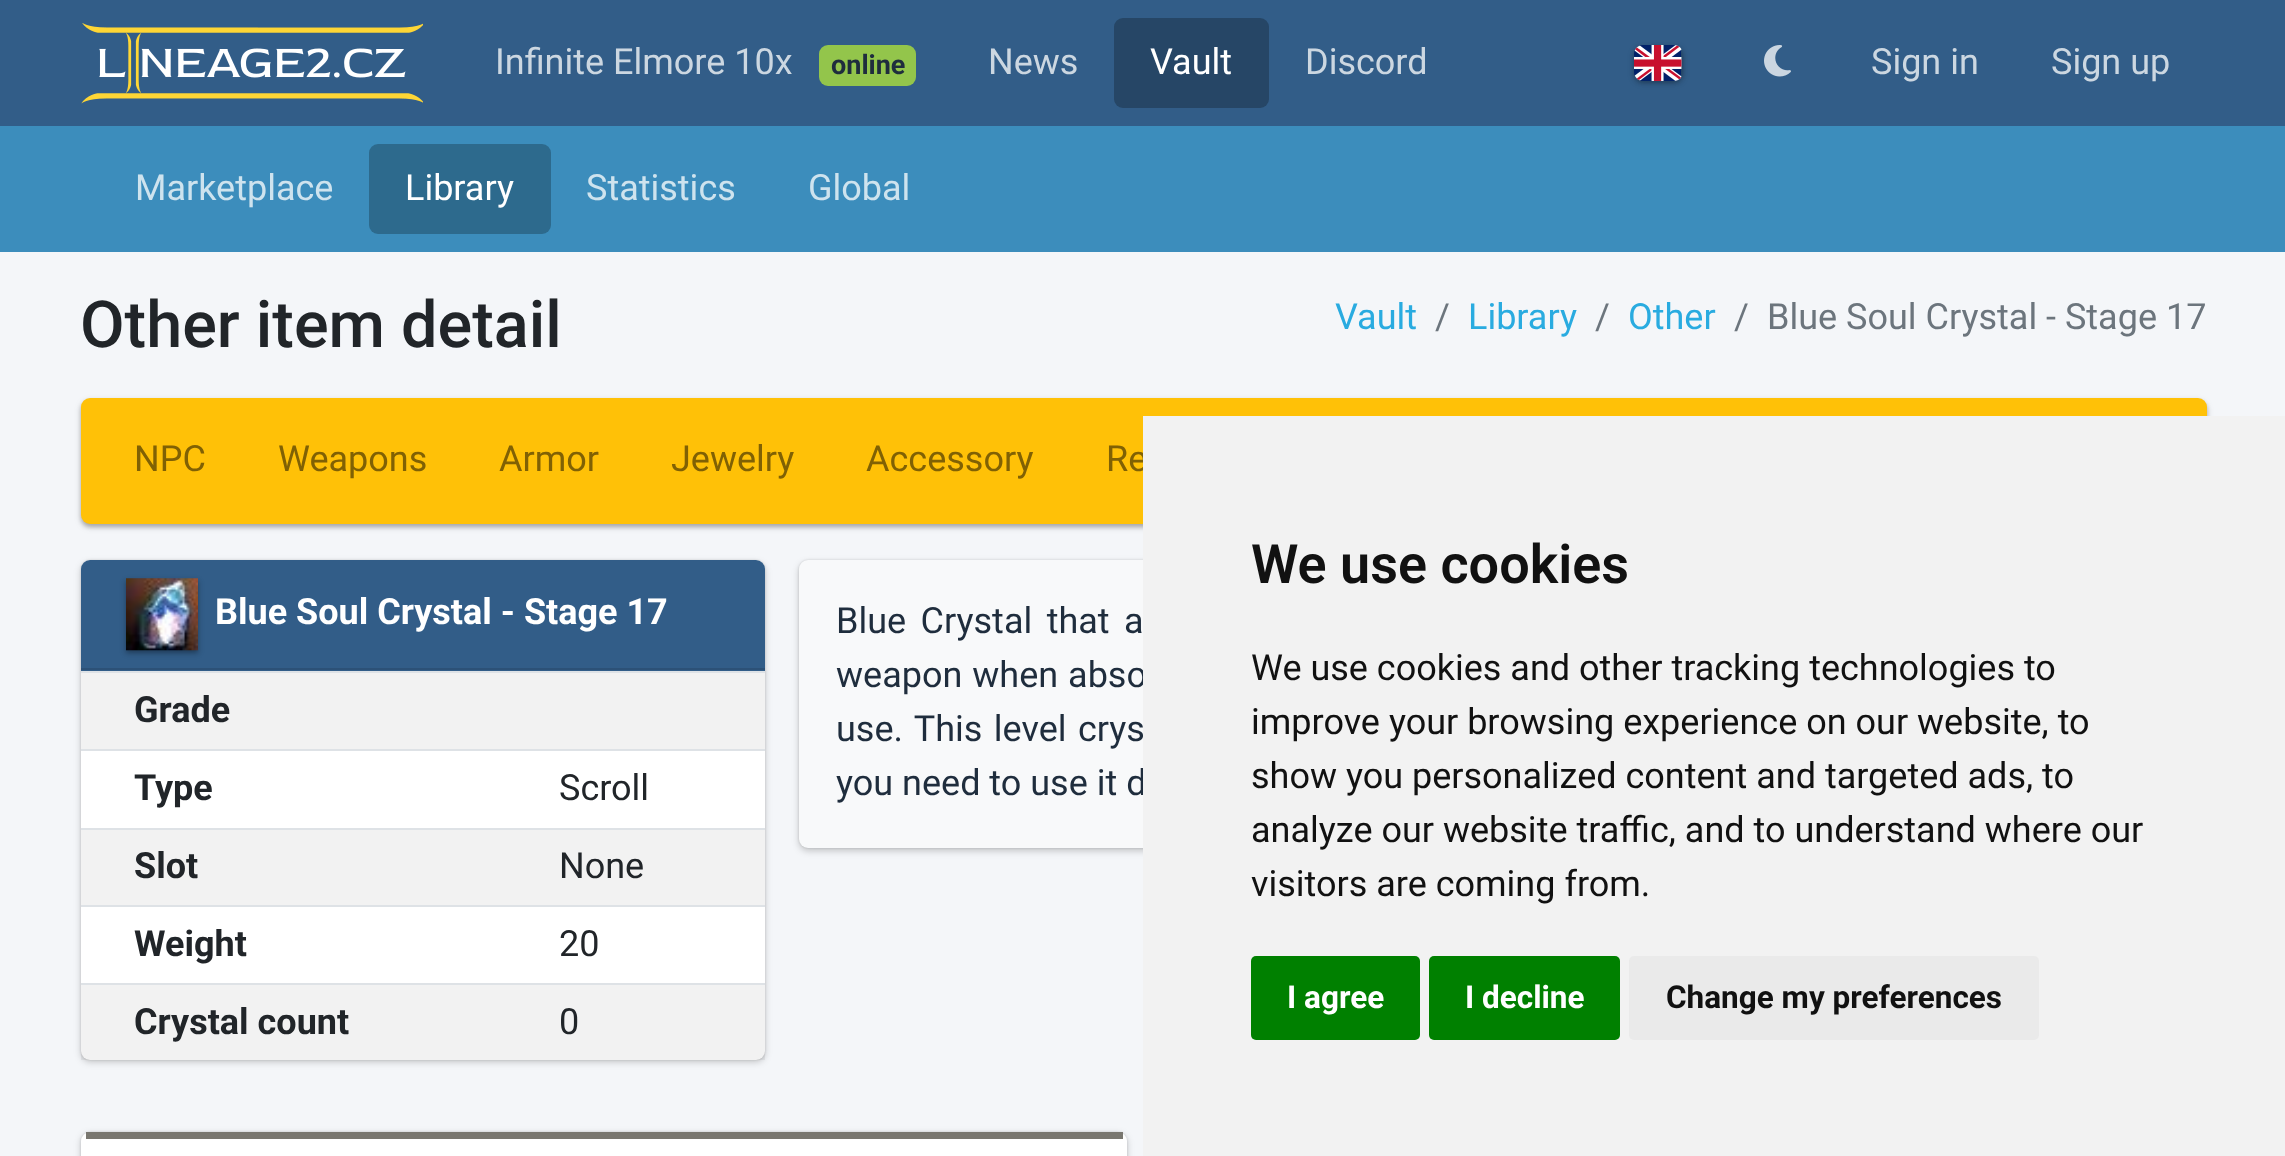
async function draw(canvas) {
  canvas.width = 2285;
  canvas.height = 1156;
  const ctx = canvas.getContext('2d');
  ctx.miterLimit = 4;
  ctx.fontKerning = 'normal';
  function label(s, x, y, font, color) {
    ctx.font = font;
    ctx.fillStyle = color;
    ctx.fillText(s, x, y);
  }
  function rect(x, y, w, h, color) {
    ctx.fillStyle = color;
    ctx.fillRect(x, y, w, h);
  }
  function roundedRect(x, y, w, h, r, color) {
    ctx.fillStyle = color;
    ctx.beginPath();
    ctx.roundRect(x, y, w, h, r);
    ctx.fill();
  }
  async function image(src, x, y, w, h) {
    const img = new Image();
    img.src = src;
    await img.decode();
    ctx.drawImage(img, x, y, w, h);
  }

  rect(0, 0, 2285, 1156, '#f4f6f9');
  rect(0, 0, 2285, 126, '#325d88');
  await image('assets/img1.png', 81, 23, 342, 81);
  label('Infinite Elmore 10x', 495, 74, '36px Roboto', '#ccd7e1');
  roundedRect(819, 45, 97, 41, 9, '#93c54b');
  label('online', 831, 74, 'bold 27px Roboto', '#1f2d3d');
  label('News', 988, 74, '36px Roboto', '#ccd7e1');
  roundedRect(1114, 18, 155, 90, 9, '#264666');
  label('Vault', 1150, 74, '36px Roboto', '#fff');
  label('Discord', 1305, 74, '36px Roboto', '#ccd7e1');
  ctx.fillStyle = '#0000003d';
  ctx.filter = 'blur(2px)';
  ctx.beginPath();
  ctx.roundRect(1634, 47, 49, 36, 9);
  ctx.fill();
  ctx.filter = 'none';
  ctx.fillStyle = '#0000001f';
  ctx.filter = 'blur(3.5px)';
  ctx.beginPath();
  ctx.roundRect(1634, 47, 49, 36, 9);
  ctx.fill();
  ctx.filter = 'none';
  await image('assets/img2.png', 1634, 45, 48, 36);
  await image('assets/img3.png', 1764, 45, 27, 32);
  label('Sign in', 1871, 74, '36px Roboto', '#ccd7e1');
  label('Sign up', 2051, 74, '36px Roboto', '#ccd7e1');
  rect(0, 126, 2285, 126, '#3c8dbc');
  label('Marketplace', 135, 200, '36px Roboto', '#cee3ee');
  roundedRect(369, 144, 182, 90, 9, '#2d6a8d');
  label('Library', 405, 200, '36px Roboto', '#fff');
  label('Statistics', 586, 200, '36px Roboto', '#cee3ee');
  label('Global', 808, 200, '36px Roboto', '#cee3ee');
  label('Other item detail', 80, 347, '500 64.75px Roboto', '#212529');
  label('Vault', 1335, 329, '36px Roboto', '#29abe0');
  label('/', 1435, 329, '36px Roboto', '#6c757d');
  label('Library', 1468, 329, '36px Roboto', '#29abe0');
  label('/', 1595, 329, '36px Roboto', '#6c757d');
  label('Other', 1628, 329, '36px Roboto', '#29abe0');
  label('/', 1734, 329, '36px Roboto', '#6c757d');
  label('Blue Soul Crystal - Stage 17', 1767, 329, '36px Roboto', '#6c757d');
  ctx.fillStyle = '#0000003d';
  ctx.filter = 'blur(2px)';
  ctx.beginPath();
  ctx.roundRect(81, 401, 2126, 126, 9);
  ctx.fill();
  ctx.filter = 'none';
  ctx.fillStyle = '#0000001f';
  ctx.filter = 'blur(3.5px)';
  ctx.beginPath();
  ctx.roundRect(81, 401, 2126, 126, 9);
  ctx.fill();
  ctx.filter = 'none';
  roundedRect(81, 398, 2126, 126, 9, '#ffc107');
  label('NPC', 134, 471, '36px Roboto', '#806104');
  label('Weapons', 278, 471, '36px Roboto', '#806104');
  label('Armor', 499, 471, '36px Roboto', '#806104');
  label('Jewelry', 671, 471, '36px Roboto', '#806104');
  label('Accessory', 866, 471, '36px Roboto', '#806104');
  label('Re', 1106, 471, '36px Roboto', '#806104');
  ctx.fillStyle = '#00000033';
  ctx.filter = 'blur(3.5px)';
  ctx.beginPath();
  ctx.roundRect(81, 563, 684, 499, 9);
  ctx.fill();
  ctx.filter = 'none';
  ctx.fillStyle = '#0000001f';
  ctx.filter = 'blur(1px)';
  ctx.beginPath();
  ctx.roundRect(81, 560, 684, 500, 9);
  ctx.fill();
  ctx.filter = 'none';
  roundedRect(81, 560, 684, 500, 9, '#fff');
  ctx.fillStyle = '#325d88';
  ctx.beginPath();
  ctx.roundRect(81, 560, 684, 111, [9, 9, 0, 0]);
  ctx.fill();
  rect(81, 668, 684, 2, '#2c5177');
  ctx.fillStyle = '#0000001f';
  ctx.filter = 'blur(3.5px)';
  ctx.beginPath();
  ctx.rect(126, 581, 72, 72);
  ctx.fill();
  ctx.filter = 'none';
  ctx.fillStyle = '#0000003d';
  ctx.filter = 'blur(2px)';
  ctx.beginPath();
  ctx.rect(126, 581, 72, 72);
  ctx.fill();
  ctx.filter = 'none';
  await image('assets/img4.png', 126, 578, 72, 73);
  label('Blue Soul Crystal - Stage 17', 215, 624, 'bold 36px Roboto', '#fff');
  rect(81, 673, 684, 76, '#f2f2f2');
  rect(81, 671, 684, 2, '#dee2e6');
  label('Grade', 134, 722, 'bold 36px Roboto', '#212529');
  label('Type', 134, 800, 'bold 36px Roboto', '#212529');
  rect(81, 749, 684, 2, '#dee2e6');
  label('Scroll', 559, 800, '36px Roboto', '#212529');
  rect(81, 830, 684, 75, '#f2f2f2');
  label('Slot', 134, 878, 'bold 36px Roboto', '#212529');
  rect(81, 828, 684, 2, '#dee2e6');
  label('None', 559, 878, '36px Roboto', '#212529');
  label('Weight', 134, 956, 'bold 36px Roboto', '#212529');
  rect(81, 905, 684, 2, '#dee2e6');
  label('20', 559, 956, '36px Roboto', '#212529');
  rect(81, 985, 684, 75, '#0000000d');
  label('Crystal count', 134, 1034, 'bold 36px Roboto', '#212529');
  rect(81, 983, 684, 2, '#dee2e6');
  label('0', 559, 1034, '36px Roboto', '#212529');
  ctx.fillStyle = '#00000033';
  ctx.filter = 'blur(3.5px)';
  ctx.beginPath();
  ctx.roundRect(799, 563, 1406, 288, 9);
  ctx.fill();
  ctx.filter = 'none';
  ctx.fillStyle = '#0000001f';
  ctx.filter = 'blur(1px)';
  ctx.beginPath();
  ctx.roundRect(799, 560, 1406, 288, 9);
  ctx.fill();
  ctx.filter = 'none';
  roundedRect(799, 560, 1406, 288, 9, '#f8f9fa');
  ctx.wordSpacing = '5.5px';
  label('Blue Crystal that a', 836, 633, '36px Roboto', '#1f2d3d');
  ctx.wordSpacing = '1px';
  label('weapon when abso', 836, 687, '36px Roboto', '#1f2d3d');
  ctx.wordSpacing = '2.5px';
  label('use. This level crys', 836, 741, '36px Roboto', '#1f2d3d');
  ctx.wordSpacing = '0px';
  label('you need to use it d', 836, 795, '36px Roboto', '#1f2d3d');
  ctx.fillStyle = '#00000033';
  ctx.filter = 'blur(3.5px)';
  ctx.beginPath();
  ctx.roundRect(81, 1134, 1046, 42, 9);
  ctx.fill();
  ctx.filter = 'none';
  ctx.fillStyle = '#0000001f';
  ctx.filter = 'blur(1px)';
  ctx.beginPath();
  ctx.roundRect(81, 1132, 1046, 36, 9);
  ctx.fill();
  ctx.filter = 'none';
  roundedRect(81, 1132, 1046, 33, 9, '#fff');
  rect(86, 1132, 1037, 7, '#797770');
  rect(1143, 416, 1142, 740, '#f2f2f2');
  label('We use cookies', 1251, 583, '600 54px Roboto', '#111');
  label('We use cookies and other tracking technologies to', 1251, 680, '36px Roboto', '#111');
  label('improve your browsing experience on our website, to', 1251, 734, '36px Roboto', '#111');
  label('show you personalized content and targeted ads, to', 1251, 788, '36px Roboto', '#111');
  label('analyze our website traffic, and to understand where our', 1251, 842, '36px Roboto', '#111');
  label('visitors are coming from.', 1251, 896, '36px Roboto', '#111');
  roundedRect(1251, 956, 169, 84, 5, '#008000');
  label('I agree', 1287, 1008, 'bold 31.5px Roboto', '#fff');
  roundedRect(1429, 956, 191, 84, 5, '#008000');
  label('I decline', 1465, 1008, 'bold 31.5px Roboto', '#fff');
  roundedRect(1629, 956, 410, 84, 5, '#eaeaea');
  label('Change my preferences', 1666, 1008, 'bold 31.5px Roboto', '#111');
}

draw(document.querySelector('canvas'));
